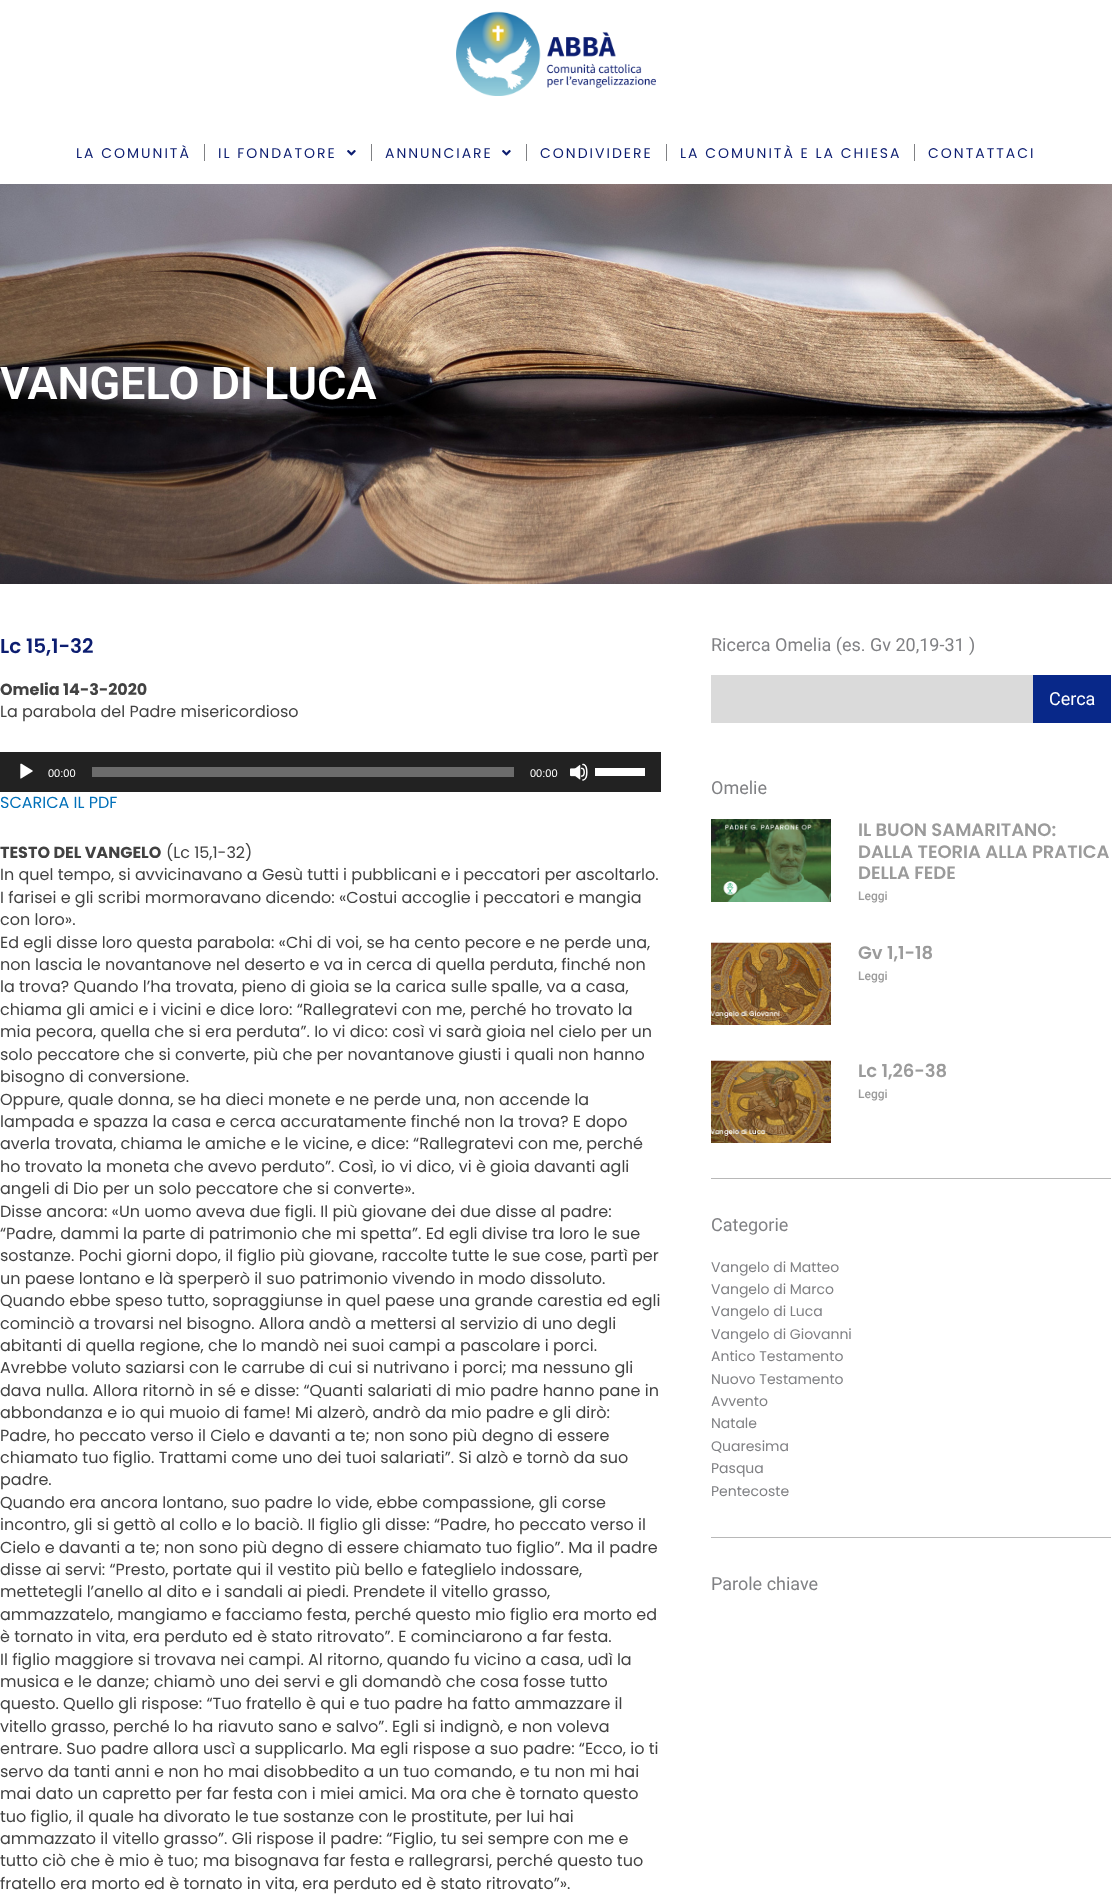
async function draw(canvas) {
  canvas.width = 1112;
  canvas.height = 1899;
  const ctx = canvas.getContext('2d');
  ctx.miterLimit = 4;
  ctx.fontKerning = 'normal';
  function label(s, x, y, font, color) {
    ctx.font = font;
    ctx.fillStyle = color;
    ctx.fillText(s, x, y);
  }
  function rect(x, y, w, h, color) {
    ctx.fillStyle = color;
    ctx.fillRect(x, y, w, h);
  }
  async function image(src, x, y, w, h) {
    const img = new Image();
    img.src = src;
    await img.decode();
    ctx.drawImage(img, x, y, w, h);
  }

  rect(0, 0, 1112, 1899, '#fff');
  await image('assets/img1.png', 456, 11, 200, 85);
  ctx.letterSpacing = '2px';
  label('LA COMUNITÀ', 76, 158, '14px Poppins', '#0c1d70');
  rect(204, 144, 1, 17, '#808184');
  label('IL FONDATORE', 218, 158, '14px Poppins', '#0c1d70');
  await image('assets/img2.png', 347, 150, 9, 6);
  rect(371, 144, 1, 17, '#808184');
  label('ANNUNCIARE', 385, 158, '14px Poppins', '#0c1d70');
  await image('assets/img2.png', 502, 150, 9, 6);
  rect(526, 144, 1, 17, '#808184');
  label('CONDIVIDERE', 540, 158, '14px Poppins', '#0c1d70');
  rect(666, 144, 1, 17, '#808184');
  label('LA COMUNITÀ E LA CHIESA', 680, 158, '14px Poppins', '#0c1d70');
  rect(914, 144, 1, 17, '#808184');
  label('CONTATTACI', 928, 158, '14px Poppins', '#0c1d70');
  await image('assets/img3.png', 0, 184, 1112, 400);
  ctx.letterSpacing = '0px';
  label('VANGELO DI LUCA', 0, 399, '600 45px Roboto', '#fff');
  label('Lc 15,1-32', 0, 653, '600 20px Poppins', '#0c1d70');
  label('Omelia 14-3-2020', 0, 695, 'bold 16px Poppins', '#424242');
  label('La parabola del Padre misericordioso', 0, 717, '16px Poppins', '#424242');
  rect(0, 752, 661, 40, '#222');
  await image('assets/img4.png', 20, 763, 13, 16);
  label('00:00', 48, 777, '11px Liberation Sans', '#fff');
  rect(92, 767, 422, 10, '#6b6b6b');
  label('00:00', 530, 777, '11px Liberation Sans', '#fff');
  await image('assets/img5.png', 570, 763, 18, 18);
  rect(595, 768, 50, 8, '#fff');
  label('SCARICA IL PDF', 0, 808, '16px Poppins', '#0170b9');
  label('TESTO DEL VANGELO', 0, 858, 'bold 16px Poppins', '#424242');
  label('(Lc 15,1-32)', 166, 858, '16px Poppins', '#424242');
  label('In quel tempo, si avvicinavano a Gesù tutti i pubblicani e i peccatori per ascoltarlo.', 0, 880, '16px Poppins', '#424242');
  label('I farisei e gli scribi mormoravano dicendo: «Costui accoglie i peccatori e mangia', 0, 903, '16px Poppins', '#424242');
  label('con loro».', 0, 925, '16px Poppins', '#424242');
  label('Ed egli disse loro questa parabola: «Chi di voi, se ha cento pecore e ne perde una,', 0, 948, '16px Poppins', '#424242');
  label('non lascia le novantanove nel deserto e va in cerca di quella perduta, finché non', 0, 970, '16px Poppins', '#424242');
  label('la trova? Quando l’ha trovata, pieno di gioia se la carica sulle spalle, va a casa,', 0, 992, '16px Poppins', '#424242');
  label('chiama gli amici e i vicini e dice loro: “Rallegratevi con me, perché ho trovato la', 0, 1015, '16px Poppins', '#424242');
  label('mia pecora, quella che si era perduta”. Io vi dico: così vi sarà gioia nel cielo per un', 0, 1037, '16px Poppins', '#424242');
  label('solo peccatore che si converte, più che per novantanove giusti i quali non hanno', 0, 1060, '16px Poppins', '#424242');
  label('bisogno di conversione.', 0, 1082, '16px Poppins', '#424242');
  label('Oppure, quale donna, se ha dieci monete e ne perde una, non accende la', 0, 1105, '16px Poppins', '#424242');
  label('lampada e spazza la casa e cerca accuratamente finché non la trova? E dopo', 0, 1127, '16px Poppins', '#424242');
  label('averla trovata, chiama le amiche e le vicine, e dice: “Rallegratevi con me, perché', 0, 1149, '16px Poppins', '#424242');
  label('ho trovato la moneta che avevo perduto”. Così, io vi dico, vi è gioia davanti agli', 0, 1172, '16px Poppins', '#424242');
  label('angeli di Dio per un solo peccatore che si converte».', 0, 1194, '16px Poppins', '#424242');
  label('Disse ancora: «Un uomo aveva due figli. Il più giovane dei due disse al padre:', 0, 1217, '16px Poppins', '#424242');
  label('“Padre, dammi la parte di patrimonio che mi spetta”. Ed egli divise tra loro le sue', 0, 1239, '16px Poppins', '#424242');
  label('sostanze. Pochi giorni dopo, il figlio più giovane, raccolte tutte le sue cose, partì per', 0, 1261, '16px Poppins', '#424242');
  label('un paese lontano e là sperperò il suo patrimonio vivendo in modo dissoluto.', 0, 1284, '16px Poppins', '#424242');
  label('Quando ebbe speso tutto, sopraggiunse in quel paese una grande carestia ed egli', 0, 1306, '16px Poppins', '#424242');
  label('cominciò a trovarsi nel bisogno. Allora andò a mettersi al servizio di uno degli', 0, 1329, '16px Poppins', '#424242');
  label('abitanti di quella regione, che lo mandò nei suoi campi a pascolare i porci.', 0, 1351, '16px Poppins', '#424242');
  label('Avrebbe voluto saziarsi con le carrube di cui si nutrivano i porci; ma nessuno gli', 0, 1373, '16px Poppins', '#424242');
  label('dava nulla. Allora ritornò in sé e disse: “Quanti salariati di mio padre hanno pane in', 0, 1396, '16px Poppins', '#424242');
  label('abbondanza e io qui muoio di fame! Mi alzerò, andrò da mio padre e gli dirò:', 0, 1418, '16px Poppins', '#424242');
  label('Padre, ho peccato verso il Cielo e davanti a te; non sono più degno di essere', 0, 1441, '16px Poppins', '#424242');
  label('chiamato tuo figlio. Trattami come uno dei tuoi salariati”. Si alzò e tornò da suo', 0, 1463, '16px Poppins', '#424242');
  label('padre.', 0, 1485, '16px Poppins', '#424242');
  label('Quando era ancora lontano, suo padre lo vide, ebbe compassione, gli corse', 0, 1508, '16px Poppins', '#424242');
  label('incontro, gli si gettò al collo e lo baciò. Il figlio gli disse: “Padre, ho peccato verso il', 0, 1530, '16px Poppins', '#424242');
  label('Cielo e davanti a te; non sono più degno di essere chiamato tuo figlio”. Ma il padre', 0, 1553, '16px Poppins', '#424242');
  label('disse ai servi: “Presto, portate qui il vestito più bello e fateglielo indossare,', 0, 1575, '16px Poppins', '#424242');
  label('mettetegli l’anello al dito e i sandali ai piedi. Prendete il vitello grasso,', 0, 1597, '16px Poppins', '#424242');
  label('ammazzatelo, mangiamo e facciamo festa, perché questo mio figlio era morto ed', 0, 1620, '16px Poppins', '#424242');
  label('è tornato in vita, era perduto ed è stato ritrovato”. E cominciarono a far festa.', 0, 1642, '16px Poppins', '#424242');
  label('Il figlio maggiore si trovava nei campi. Al ritorno, quando fu vicino a casa, udì la', 0, 1665, '16px Poppins', '#424242');
  label('musica e le danze; chiamò uno dei servi e gli domandò che cosa fosse tutto', 0, 1687, '16px Poppins', '#424242');
  label('questo. Quello gli rispose: “Tuo fratello è qui e tuo padre ha fatto ammazzare il', 0, 1709, '16px Poppins', '#424242');
  label('vitello grasso, perché lo ha riavuto sano e salvo”. Egli si indignò, e non voleva', 0, 1732, '16px Poppins', '#424242');
  label('entrare. Suo padre allora uscì a supplicarlo. Ma egli rispose a suo padre: “Ecco, io ti', 0, 1754, '16px Poppins', '#424242');
  label('servo da tanti anni e non ho mai disobbedito a un tuo comando, e tu non mi hai', 0, 1777, '16px Poppins', '#424242');
  label('mai dato un capretto per far festa con i miei amici. Ma ora che è tornato questo', 0, 1799, '16px Poppins', '#424242');
  label('tuo figlio, il quale ha divorato le tue sostanze con le prostitute, per lui hai', 0, 1822, '16px Poppins', '#424242');
  label('ammazzato il vitello grasso”. Gli rispose il padre: “Figlio, tu sei sempre con me e', 0, 1844, '16px Poppins', '#424242');
  label('tutto ciò che è mio è tuo; ma bisognava far festa e rallegrarsi, perché questo tuo', 0, 1866, '16px Poppins', '#424242');
  label('fratello era morto ed è tornato in vita, era perduto ed è stato ritrovato”».', 0, 1889, '16px Poppins', '#424242');
  label('Ricerca Omelia (es. Gv 20,19-31 )', 711, 651, '18px Roboto', '#808184');
  rect(711, 675, 322, 48, '#dadada');
  rect(1033, 675, 78, 48, '#082889');
  label('Cerca', 1049, 705, '18px Roboto', '#fff');
  label('Omelie', 711, 794, '18px Roboto', '#808184');
  await image('assets/img6.png', 711, 819, 120, 83);
  label('IL BUON SAMARITANO:', 858, 836, '600 18px Poppins', '#9b9b9b');
  label('DALLA TEORIA ALLA PRATICA', 858, 858, '600 18px Poppins', '#9b9b9b');
  label('DELLA FEDE', 858, 879, '600 18px Poppins', '#9b9b9b');
  label('Leggi', 858, 900, '500 12px Roboto', '#9b9b9b');
  await image('assets/img7.png', 711, 942, 120, 83);
  label('Gv 1,1-18', 858, 959, '600 18px Poppins', '#9b9b9b');
  label('Leggi', 858, 980, '500 12px Roboto', '#9b9b9b');
  await image('assets/img8.png', 711, 1060, 120, 83);
  label('Lc 1,26-38', 858, 1077, '600 18px Poppins', '#9b9b9b');
  label('Leggi', 858, 1098, '500 12px Roboto', '#9b9b9b');
  rect(711, 1178, 400, 1, '#b8b8b8');
  label('Categorie', 711, 1231, '18px Roboto', '#808184');
  label('Vangelo di Matteo', 711, 1272, '14px Poppins', '#808184');
  label('Vangelo di Marco', 711, 1294, '14px Poppins', '#808184');
  label('Vangelo di Luca', 711, 1316, '14px Poppins', '#808184');
  label('Vangelo di Giovanni', 711, 1339, '14px Poppins', '#808184');
  label('Antico Testamento', 711, 1361, '14px Poppins', '#808184');
  label('Nuovo Testamento', 711, 1384, '14px Poppins', '#808184');
  label('Avvento', 711, 1406, '14px Poppins', '#808184');
  label('Natale', 711, 1428, '14px Poppins', '#808184');
  label('Quaresima', 711, 1451, '14px Poppins', '#808184');
  label('Pasqua', 711, 1473, '14px Poppins', '#808184');
  label('Pentecoste', 711, 1496, '14px Poppins', '#808184');
  rect(711, 1537, 400, 1, '#b8b8b8');
  label('Parole chiave', 711, 1590, '18px Roboto', '#808184');
}

draw(document.querySelector('canvas'));
